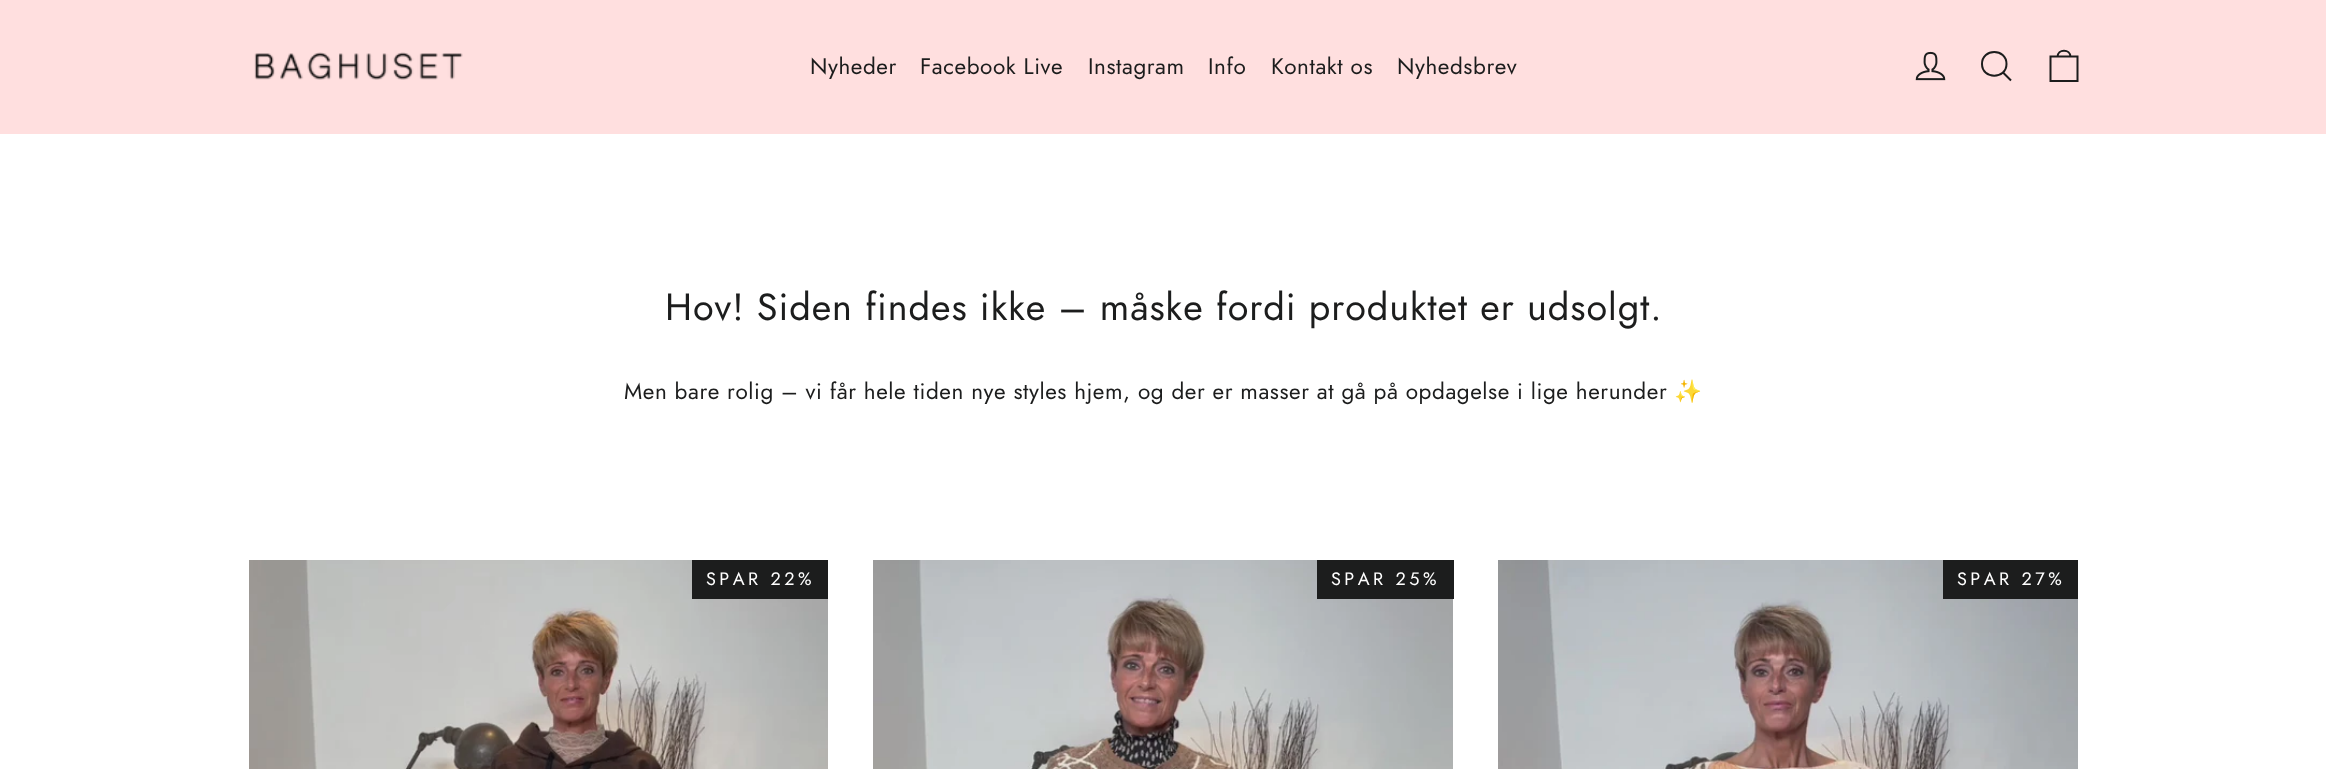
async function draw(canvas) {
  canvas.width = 2326;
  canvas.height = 769;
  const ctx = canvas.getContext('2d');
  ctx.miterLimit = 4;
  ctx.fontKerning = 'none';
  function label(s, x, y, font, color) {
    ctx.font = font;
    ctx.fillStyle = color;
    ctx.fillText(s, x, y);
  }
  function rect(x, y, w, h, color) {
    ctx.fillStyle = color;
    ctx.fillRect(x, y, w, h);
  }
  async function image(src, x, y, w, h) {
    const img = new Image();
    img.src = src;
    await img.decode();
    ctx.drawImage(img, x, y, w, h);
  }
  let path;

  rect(0, 0, 2326, 769, '#fff');
  rect(0, 0, 2326, 134, '#ffdfdf');
  await image('assets/img1.png', 254, 52, 209, 28);
  ctx.letterSpacing = '0.56px';
  label('Nyheder', 810, 74, '22.5px Jost', '#1c1d1d');
  label('Facebook Live', 920, 74, '22.5px Jost', '#1c1d1d');
  label('Instagram', 1088, 74, '22.5px Jost', '#1c1d1d');
  label('Info', 1208, 74, '22.5px Jost', '#1c1d1d');
  label('Kontakt os', 1271, 74, '22.5px Jost', '#1c1d1d');
  label('Nyhedsbrev', 1397, 74, '22.5px Jost', '#1c1d1d');
  await image('assets/img2.png', 1915, 51, 31, 30);
  path = new Path2D('M2006.5 64C2006.5 79.5 1982 79.5 1982 64C1982 48 2006.5 48 2006.5 64ZM2011 80.5L2003 72.5');
  ctx.strokeStyle = '#1c1d1d';
  ctx.lineWidth = 2;
  ctx.stroke(path);
  path = new Path2D('M2050.5 56.5H2077.5V81H2050.5ZM2057.5 57C2057.5 48.5 2070.5 48.5 2070.5 57');
  ctx.stroke(path);
  ctx.letterSpacing = '0.95px';
  label('Hov! Siden findes ikke – måske fordi produktet er udsolgt.', 665, 320, '37.8px Jost', '#1c1d1d');
  ctx.letterSpacing = '0.56px';
  label('Men bare rolig – vi får hele tiden nye styles hjem, og der er masser at gå på opdagelse i lige herunder', 624, 399, '22.5px Jost', '#1c1d1d');
  label('✨', 1674, 399, '22.5px Noto Color Emoji', '#1c1d1d');
  await image('assets/img3.png', 249, 560, 579, 209);
  rect(692, 560, 136, 39, '#1c1d1d');
  ctx.letterSpacing = '3.5px';
  label('SPAR 22%', 706, 585, '18px Jost', '#fff');
  await image('assets/img4.png', 873, 560, 580, 209);
  rect(1317, 560, 137, 39, '#1c1d1d');
  label('SPAR 25%', 1331, 585, '18px Jost', '#fff');
  await image('assets/img5.png', 1498, 560, 580, 209);
  rect(1943, 560, 135, 39, '#1c1d1d');
  label('SPAR 27%', 1957, 585, '18px Jost', '#fff');
}

draw(document.querySelector('canvas'));
